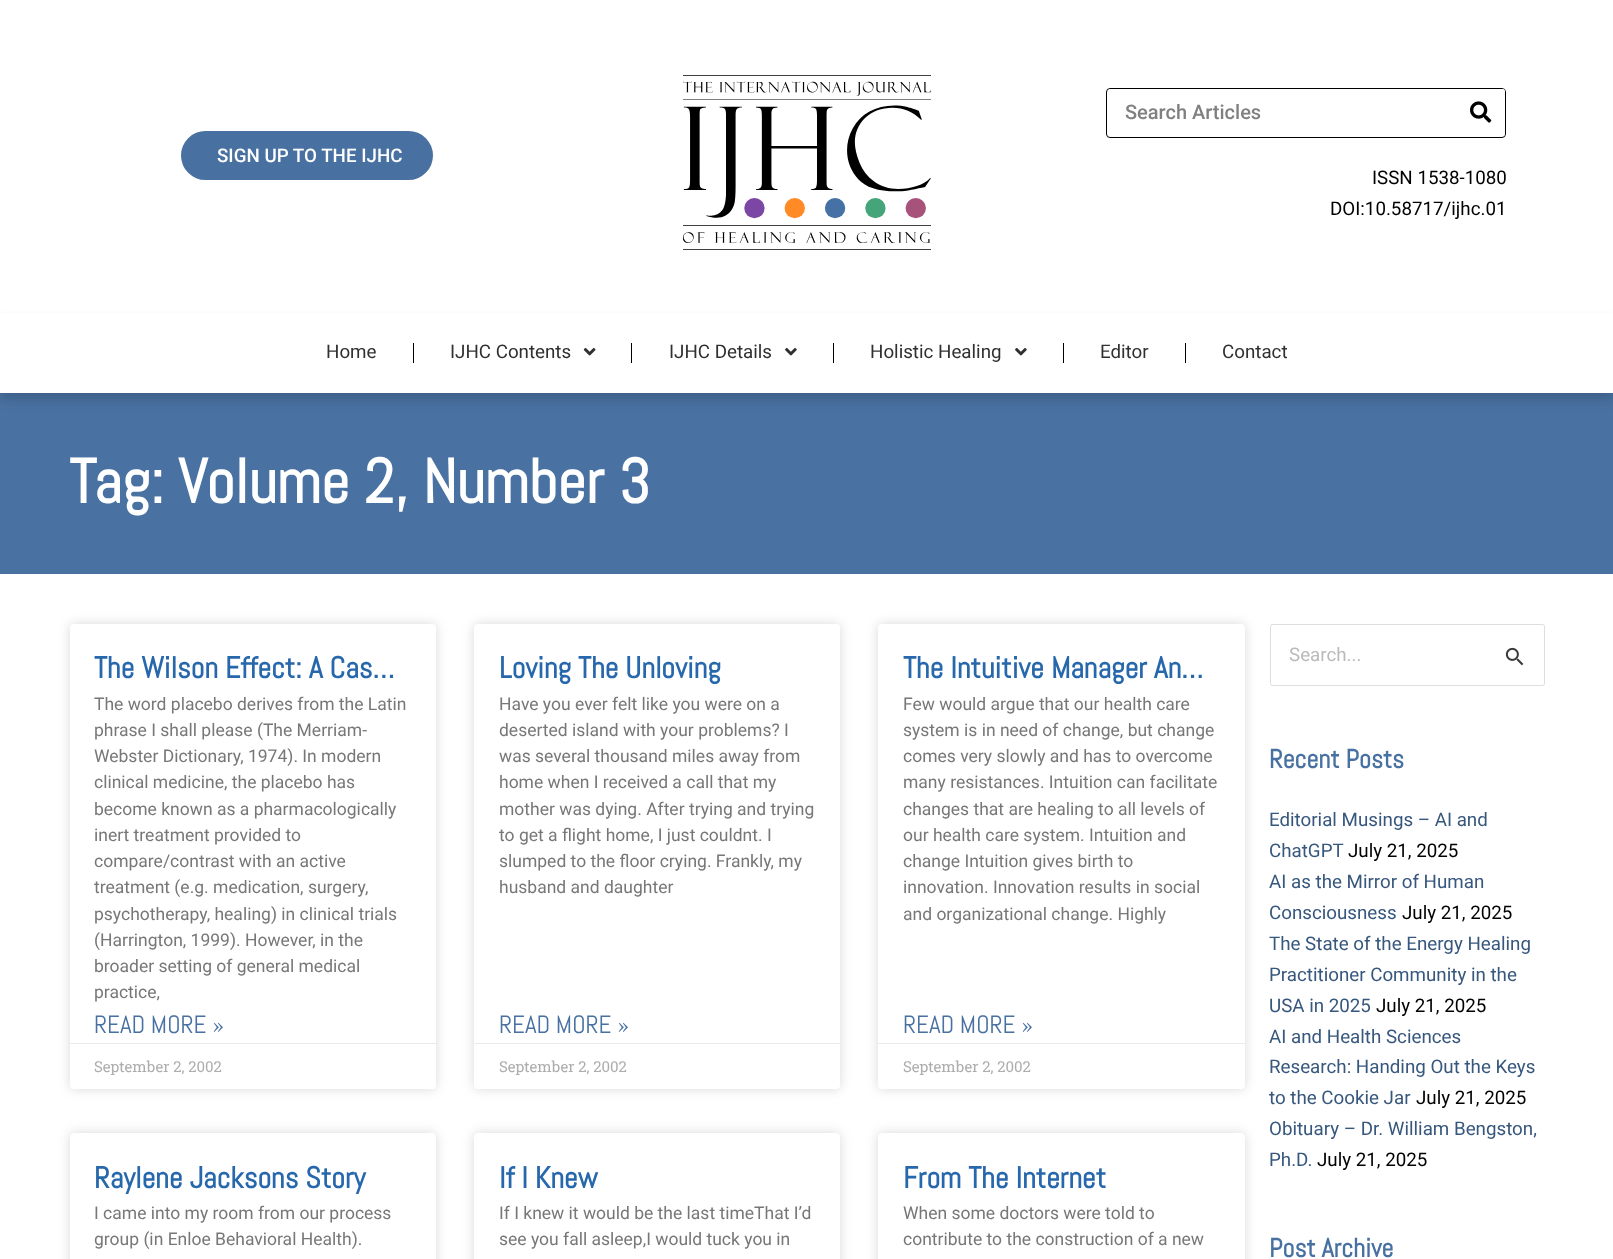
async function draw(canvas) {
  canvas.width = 1613;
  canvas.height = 1259;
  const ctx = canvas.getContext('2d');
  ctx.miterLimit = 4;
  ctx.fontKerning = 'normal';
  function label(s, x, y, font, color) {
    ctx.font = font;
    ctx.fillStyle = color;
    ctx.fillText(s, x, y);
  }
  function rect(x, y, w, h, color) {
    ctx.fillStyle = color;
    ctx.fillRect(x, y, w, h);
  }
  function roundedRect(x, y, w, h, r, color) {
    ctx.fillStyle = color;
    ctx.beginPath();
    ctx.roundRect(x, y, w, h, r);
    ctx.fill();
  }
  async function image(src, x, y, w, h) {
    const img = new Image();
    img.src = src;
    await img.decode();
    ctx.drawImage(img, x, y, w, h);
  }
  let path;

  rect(0, 0, 1613, 1259, '#fff');
  roundedRect(181, 131, 252, 49, 24.5, '#4871a2');
  label('SIGN UP TO THE IJHC', 217, 162, '500 18.75px Roboto', '#fff');
  await image('assets/img1.png', 683, 75, 248, 175);
  ctx.beginPath();
  ctx.roundRect(1106.5, 88.5, 399, 49, 3.5);
  ctx.strokeStyle = '#000';
  ctx.stroke();
  roundedRect(1108, 89, 347, 47, 2.5, '#fff');
  label('Search Articles', 1125, 119, '500 20px Roboto', '#808080');
  ctx.fillStyle = '#fff';
  ctx.beginPath();
  ctx.roundRect(1455, 89, 50, 47, [0, 2.5, 2.5, 0]);
  ctx.fill();
  await image('assets/img2.png', 1470, 101, 22, 22);
  label('ISSN 1538-1080', 1372, 184, '18.75px Roboto', '#000');
  label('DOI:10.58717/ijhc.01', 1330, 215, '18.75px Roboto', '#000');
  rect(0, 393, 1613, 181, '#4972a2');
  ctx.fillStyle = '#00000026';
  ctx.filter = 'blur(5.5px)';
  ctx.beginPath();
  ctx.rect(0, 320, 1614, 80);
  ctx.fill();
  ctx.filter = 'none';
  rect(0, 313, 1613, 80, '#fff');
  label('Home', 326, 358, '18.75px Roboto', '#303030');
  rect(413, 343, 1, 20, '#000');
  label('IJHC Contents', 450, 358, '18.75px Roboto', '#303030');
  await image('assets/img3.png', 583, 348, 13, 8);
  rect(631, 343, 1, 20, '#000');
  label('IJHC Details', 669, 358, '18.75px Roboto', '#303030');
  await image('assets/img4.png', 785, 348, 12, 8);
  rect(833, 343, 1, 20, '#000');
  label('Holistic Healing', 870, 358, '18.75px Roboto', '#303030');
  await image('assets/img4.png', 1015, 348, 12, 8);
  rect(1063, 343, 1, 20, '#000');
  label('Editor', 1100, 358, '18.75px Roboto', '#303030');
  rect(1185, 343, 1, 20, '#000');
  label('Contact', 1222, 358, '18.75px Roboto', '#303030');
  label('Tag: Volume 2, Number 3', 69, 503, 'bold 62.5px Abel', '#fff');
  ctx.fillStyle = '#00000026';
  ctx.filter = 'blur(6px)';
  ctx.beginPath();
  ctx.roundRect(70, 624, 366, 465, 4);
  ctx.fill();
  ctx.filter = 'none';
  roundedRect(70, 624, 366, 465, 4, '#fff');
  label('The Wilson Effect: A Cas…', 94, 678, 'bold 30px Abel', '#2768ac');
  label('The word placebo derives from the Latin', 94, 710, '17.5px Roboto', '#777');
  label('phrase I shall please (The Merriam-', 94, 736, '17.5px Roboto', '#777');
  label('Webster Dictionary, 1974). In modern', 94, 762, '17.5px Roboto', '#777');
  label('clinical medicine, the placebo has', 94, 788, '17.5px Roboto', '#777');
  label('become known as a pharmacologically', 94, 815, '17.5px Roboto', '#777');
  label('inert treatment provided to', 94, 841, '17.5px Roboto', '#777');
  label('compare/contrast with an active', 94, 867, '17.5px Roboto', '#777');
  label('treatment (e.g. medication, surgery,', 94, 893, '17.5px Roboto', '#777');
  label('psychotherapy, healing) in clinical trials', 94, 920, '17.5px Roboto', '#777');
  label('(Harrington, 1999). However, in the', 94, 946, '17.5px Roboto', '#777');
  label('broader setting of general medical', 94, 972, '17.5px Roboto', '#777');
  label('practice,', 94, 998, '17.5px Roboto', '#777');
  label('READ MORE »', 94, 1033, '25px Abel', '#4871a2');
  rect(70, 1043, 366, 1, '#eaeaea');
  label('September 2, 2002', 94, 1072, '15px Roboto Slab', '#adadad');
  ctx.fillStyle = '#00000026';
  ctx.filter = 'blur(6px)';
  ctx.beginPath();
  ctx.roundRect(474, 624, 366, 465, 4);
  ctx.fill();
  ctx.filter = 'none';
  roundedRect(474, 624, 366, 465, 4, '#fff');
  label('Loving The Unloving', 499, 678, 'bold 30px Abel', '#2768ac');
  label('Have you ever felt like you were on a', 499, 710, '17.5px Roboto', '#777');
  label('deserted island with your problems? I', 499, 736, '17.5px Roboto', '#777');
  label('was several thousand miles away from', 499, 762, '17.5px Roboto', '#777');
  label('home when I received a call that my', 499, 788, '17.5px Roboto', '#777');
  label('mother was dying. After trying and trying', 499, 815, '17.5px Roboto', '#777');
  label('to get a flight home, I just couldnt. I', 499, 841, '17.5px Roboto', '#777');
  label('slumped to the floor crying. Frankly, my', 499, 867, '17.5px Roboto', '#777');
  label('husband and daughter', 499, 893, '17.5px Roboto', '#777');
  label('READ MORE »', 499, 1033, '25px Abel', '#4871a2');
  rect(474, 1043, 366, 1, '#eaeaea');
  label('September 2, 2002', 499, 1072, '15px Roboto Slab', '#adadad');
  ctx.fillStyle = '#00000026';
  ctx.filter = 'blur(6px)';
  ctx.beginPath();
  ctx.roundRect(878, 624, 367, 465, 4);
  ctx.fill();
  ctx.filter = 'none';
  roundedRect(878, 624, 367, 465, 4, '#fff');
  label('The Intuitive Manager An…', 903, 678, 'bold 30px Abel', '#2768ac');
  label('Few would argue that our health care', 903, 710, '17.5px Roboto', '#777');
  label('system is in need of change, but change', 903, 736, '17.5px Roboto', '#777');
  label('comes very slowly and has to overcome', 903, 762, '17.5px Roboto', '#777');
  label('many resistances. Intuition can facilitate', 903, 788, '17.5px Roboto', '#777');
  label('changes that are healing to all levels of', 903, 815, '17.5px Roboto', '#777');
  label('our health care system. Intuition and', 903, 841, '17.5px Roboto', '#777');
  label('change Intuition gives birth to', 903, 867, '17.5px Roboto', '#777');
  label('innovation. Innovation results in social', 903, 893, '17.5px Roboto', '#777');
  label('and organizational change. Highly', 903, 920, '17.5px Roboto', '#777');
  label('READ MORE »', 903, 1033, '25px Abel', '#4871a2');
  rect(878, 1043, 367, 1, '#eaeaea');
  label('September 2, 2002', 903, 1072, '15px Roboto Slab', '#adadad');
  ctx.save();
  path = new Path2D('M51 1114H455V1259H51ZM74 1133H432C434 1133 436 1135 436 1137V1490C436 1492 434 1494 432 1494H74C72 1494 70 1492 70 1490V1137C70 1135 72 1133 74 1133Z');
  ctx.clip(path, 'evenodd');
  ctx.fillStyle = '#00000026';
  ctx.filter = 'blur(6px)';
  ctx.beginPath();
  ctx.roundRect(70, 1133, 366, 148, 4);
  ctx.fill();
  ctx.filter = 'none';
  ctx.restore();
  label('Raylene Jacksons Story', 94, 1188, 'bold 30px Abel', '#2768ac');
  label('I came into my room from our process', 94, 1219, '17.5px Roboto', '#777');
  label('group (in Enloe Behavioral Health).', 94, 1245, '17.5px Roboto', '#777');
  ctx.save();
  path = new Path2D('M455 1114H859V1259H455ZM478 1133H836C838 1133 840 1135 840 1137V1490C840 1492 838 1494 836 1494H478C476 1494 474 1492 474 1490V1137C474 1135 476 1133 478 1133Z');
  ctx.clip(path, 'evenodd');
  ctx.fillStyle = '#00000026';
  ctx.filter = 'blur(6px)';
  ctx.beginPath();
  ctx.roundRect(474, 1133, 366, 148, 4);
  ctx.fill();
  ctx.filter = 'none';
  ctx.restore();
  label('If I Knew', 499, 1188, 'bold 30px Abel', '#2768ac');
  label('If I knew it would be the last timeThat I’d', 499, 1219, '17.5px Roboto', '#777');
  label('see you fall asleep,I would tuck you in', 499, 1245, '17.5px Roboto', '#777');
  ctx.save();
  path = new Path2D('M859 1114H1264V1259H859ZM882 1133H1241C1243 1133 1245 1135 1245 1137V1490C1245 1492 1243 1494 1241 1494H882C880 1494 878 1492 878 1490V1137C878 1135 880 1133 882 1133Z');
  ctx.clip(path, 'evenodd');
  ctx.fillStyle = '#00000026';
  ctx.filter = 'blur(6px)';
  ctx.beginPath();
  ctx.roundRect(878, 1133, 367, 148, 4);
  ctx.fill();
  ctx.filter = 'none';
  ctx.restore();
  label('From The Internet', 903, 1188, 'bold 30px Abel', '#2768ac');
  label('When some doctors were told to', 903, 1219, '17.5px Roboto', '#777');
  label('contribute to the construction of a new', 903, 1245, '17.5px Roboto', '#777');
  ctx.beginPath();
  ctx.roundRect(1270.5, 624.5, 274, 61, 2);
  ctx.strokeStyle = '#ddd';
  ctx.stroke();
  label('Search...', 1289, 661, '18.75px Roboto', '#bababa');
  await image('assets/img5.png', 1505, 647, 19, 19);
  label('Recent Posts', 1269, 768, 'bold 26.25px Abel', '#4871a2');
  label('Editorial Musings – AI and', 1269, 826, '18.75px Roboto', '#37577d');
  label('ChatGPT', 1269, 857, '18.75px Roboto', '#37577d');
  label('July 21, 2025', 1348, 857, '18.75px Roboto', '#000');
  label('AI as the Mirror of Human', 1269, 888, '18.75px Roboto', '#37577d');
  label('Consciousness', 1269, 919, '18.75px Roboto', '#37577d');
  label('July 21, 2025', 1402, 919, '18.75px Roboto', '#000');
  label('The State of the Energy Healing', 1269, 950, '18.75px Roboto', '#37577d');
  label('Practitioner Community in the', 1269, 981, '18.75px Roboto', '#37577d');
  label('USA in 2025', 1269, 1012, '18.75px Roboto', '#37577d');
  label('July 21, 2025', 1376, 1012, '18.75px Roboto', '#000');
  label('AI and Health Sciences', 1269, 1043, '18.75px Roboto', '#37577d');
  label('Research: Handing Out the Keys', 1269, 1073, '18.75px Roboto', '#37577d');
  label('to the Cookie Jar', 1269, 1104, '18.75px Roboto', '#37577d');
  label('July 21, 2025', 1416, 1104, '18.75px Roboto', '#000');
  label('Obituary – Dr. William Bengston,', 1269, 1135, '18.75px Roboto', '#37577d');
  label('Ph.D.', 1269, 1166, '18.75px Roboto', '#37577d');
  label('July 21, 2025', 1317, 1166, '18.75px Roboto', '#000');
  label('Post Archive', 1269, 1257, 'bold 26.25px Abel', '#4871a2');
}

draw(document.querySelector('canvas'));
